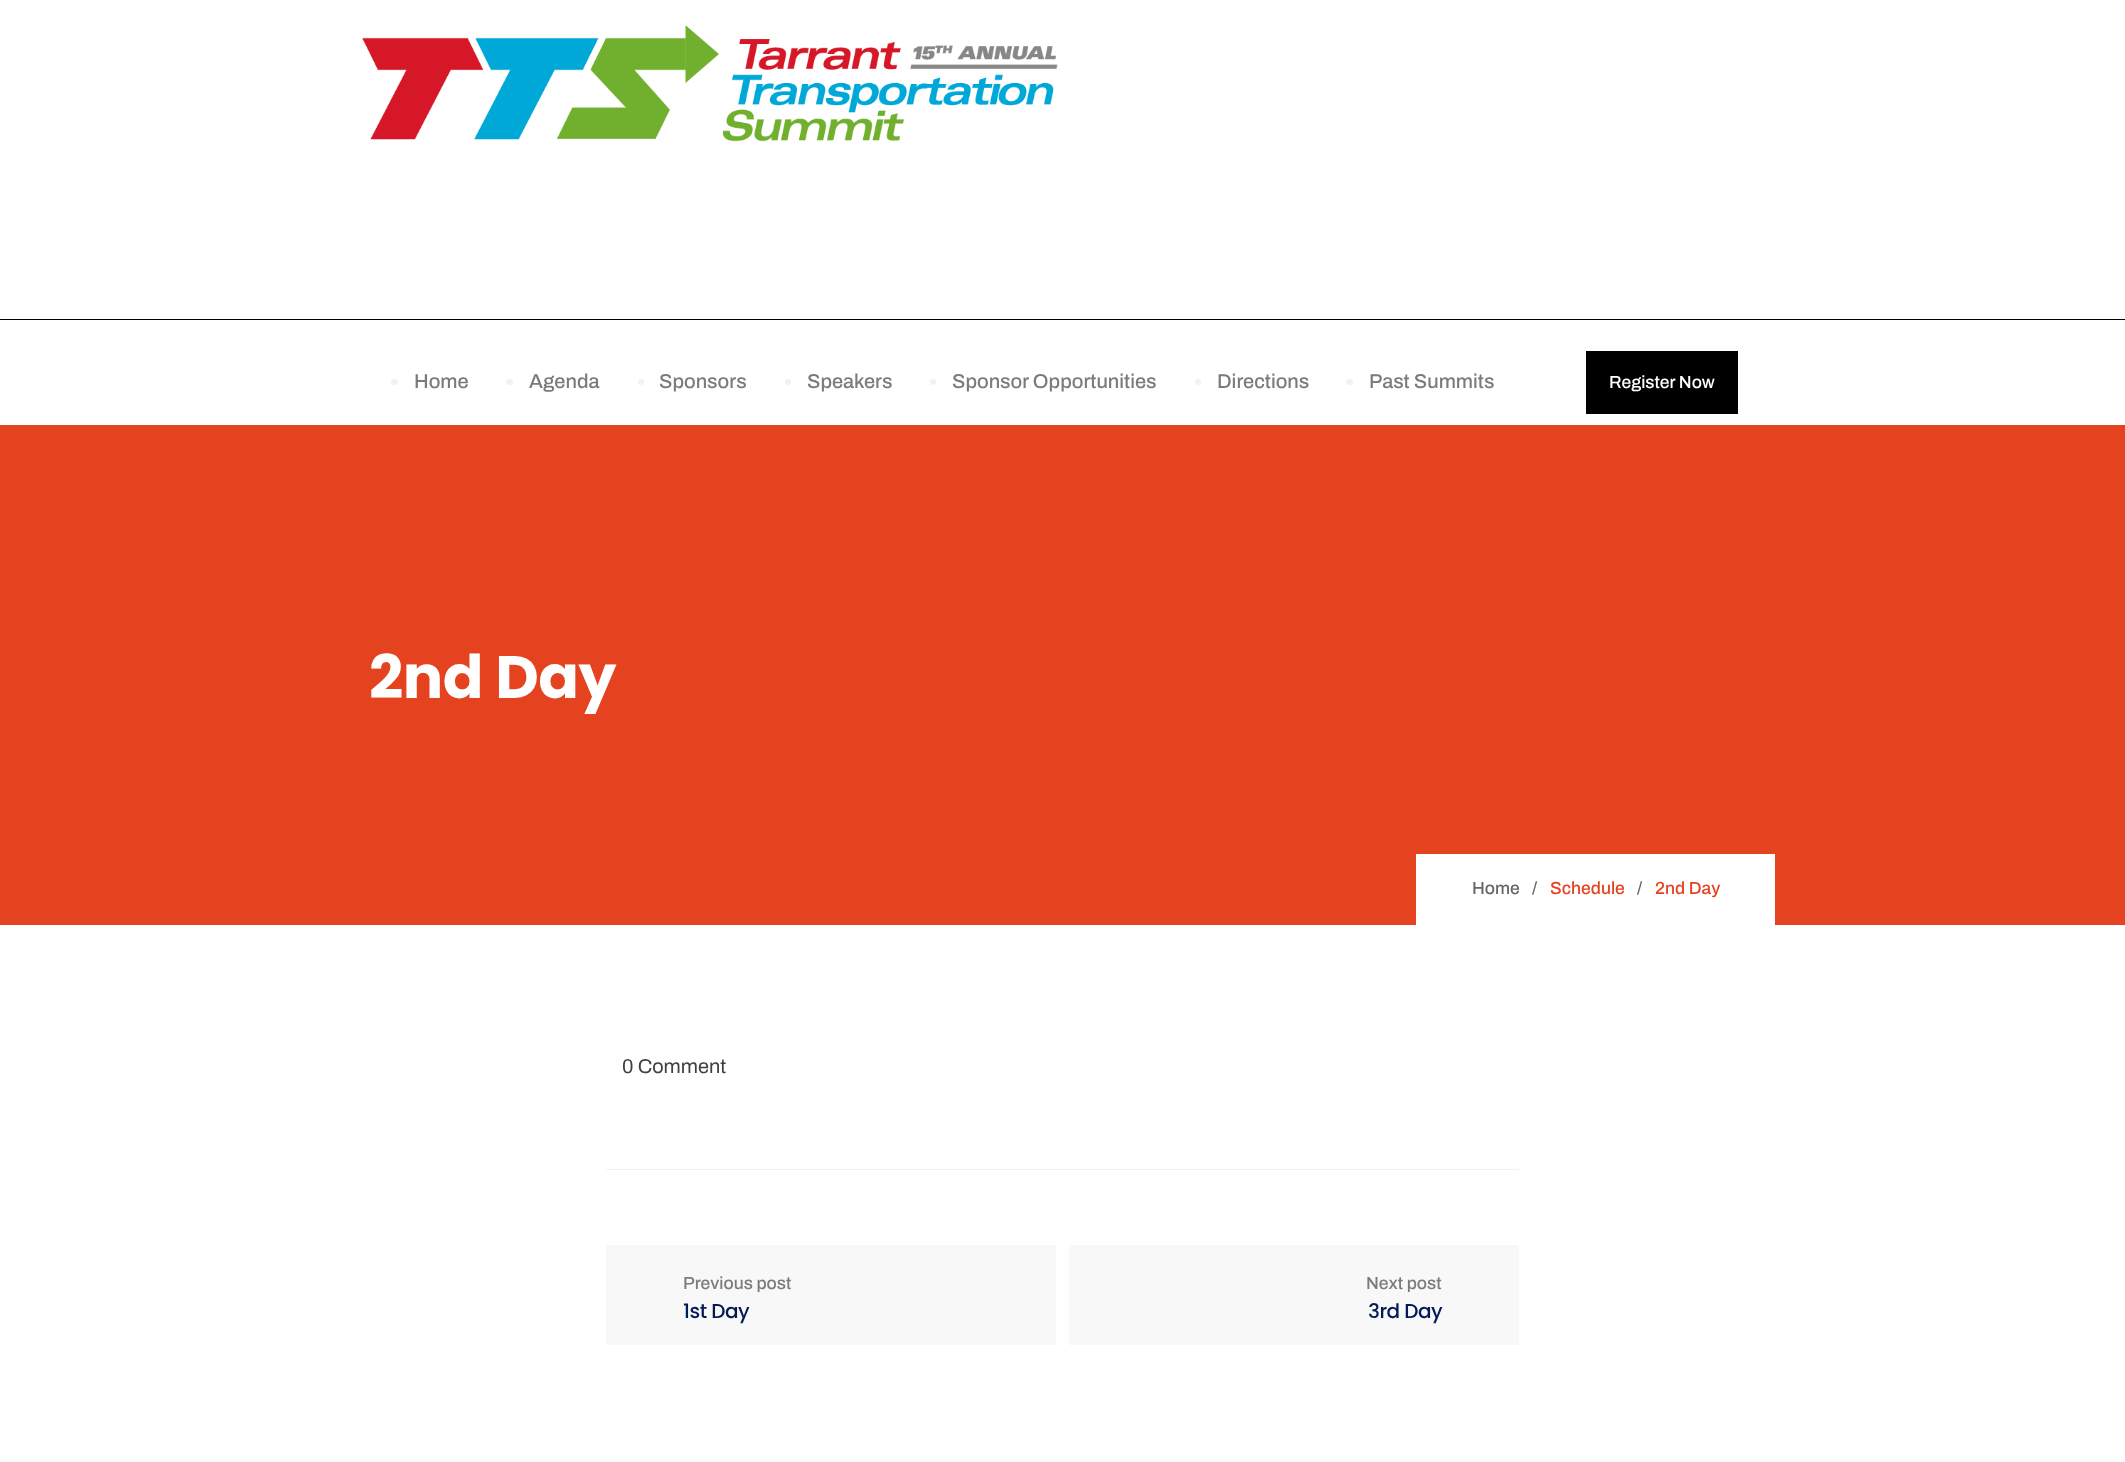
async function draw(canvas) {
  canvas.width = 2125;
  canvas.height = 1462;
  const ctx = canvas.getContext('2d');
  ctx.miterLimit = 4;
  ctx.fontKerning = 'normal';
  function label(s, x, y, font, color) {
    ctx.font = font;
    ctx.fillStyle = color;
    ctx.fillText(s, x, y);
  }
  function rect(x, y, w, h, color) {
    ctx.fillStyle = color;
    ctx.fillRect(x, y, w, h);
  }
  function roundedRect(x, y, w, h, r, color) {
    ctx.fillStyle = color;
    ctx.beginPath();
    ctx.roundRect(x, y, w, h, r);
    ctx.fill();
  }
  async function image(src, x, y, w, h) {
    const img = new Image();
    img.src = src;
    await img.decode();
    ctx.drawImage(img, x, y, w, h);
  }

  rect(0, 0, 2125, 1462, '#fff');
  await image('assets/img1.png', 362, 25, 696, 117);
  rect(0, 319, 2125, 1, '#000');
  roundedRect(391, 379, 7, 6, 3, '#f2f2f2');
  label('Home', 414, 388, '500 20px Archivo', '#7a7b7e');
  roundedRect(506, 379, 7, 6, 3, '#f2f2f2');
  label('Agenda', 529, 388, '500 20px Archivo', '#7a7b7e');
  ctx.fillStyle = '#f2f2f2';
  ctx.beginPath();
  ctx.arc(641, 382, 3, 0, 2 * Math.PI);
  ctx.fill();
  label('Sponsors', 659, 388, '500 20px Archivo', '#7a7b7e');
  ctx.fillStyle = '#f2f2f2';
  ctx.beginPath();
  ctx.arc(788, 382, 3, 0, 2 * Math.PI);
  ctx.fill();
  label('Speakers', 807, 388, '500 20px Archivo', '#7a7b7e');
  ctx.fillStyle = '#f2f2f2';
  ctx.beginPath();
  ctx.arc(933, 382, 3, 0, 2 * Math.PI);
  ctx.fill();
  label('Sponsor Opportunities', 952, 388, '500 20px Archivo', '#7a7b7e');
  ctx.fillStyle = '#f2f2f2';
  ctx.beginPath();
  ctx.arc(1198, 382, 3, 0, 2 * Math.PI);
  ctx.fill();
  label('Directions', 1217, 388, '500 20px Archivo', '#7a7b7e');
  roundedRect(1346, 379, 7, 6, 3, '#f2f2f2');
  label('Past Summits', 1369, 388, '500 20px Archivo', '#7a7b7e');
  rect(1586, 351, 152, 63, '#000');
  label('Register Now', 1609, 388, '500 17.5px Archivo', '#fff');
  rect(0, 425, 2125, 500, '#e54220');
  ctx.letterSpacing = '-0.5px';
  label('2nd Day', 369, 698, 'bold 60px Poppins', '#fff');
  rect(1416, 854, 359, 71, '#fff');
  ctx.letterSpacing = '0px';
  label('Home', 1472, 894, '500 17.5px Archivo', '#666');
  label('/', 1532, 894, '500 17.5px Archivo', '#666');
  label('Schedule', 1550, 894, '500 17.5px Archivo', '#e54220');
  label('/', 1637, 894, '500 17.5px Archivo', '#666');
  label('2nd Day', 1655, 894, '500 17.5px Archivo', '#e54220');
  label('0 Comment', 622, 1073, '20px Archivo', '#404040');
  rect(606, 1169, 913, 1, '#f2f2f2');
  rect(606, 1245, 450, 100, '#f8f8f8');
  label('Previous post', 683, 1289, '500 17.5px Archivo', '#7a7b7e');
  ctx.letterSpacing = '-0.5px';
  label('1st Day', 683, 1318, '500 20px Poppins', '#041a57');
  rect(1069, 1245, 450, 100, '#f8f8f8');
  ctx.letterSpacing = '0px';
  label('Next post', 1366, 1289, '500 17.5px Archivo', '#7a7b7e');
  ctx.letterSpacing = '-0.5px';
  label('3rd Day', 1368, 1318, '500 20px Poppins', '#041a57');
}

draw(document.querySelector('canvas'));
